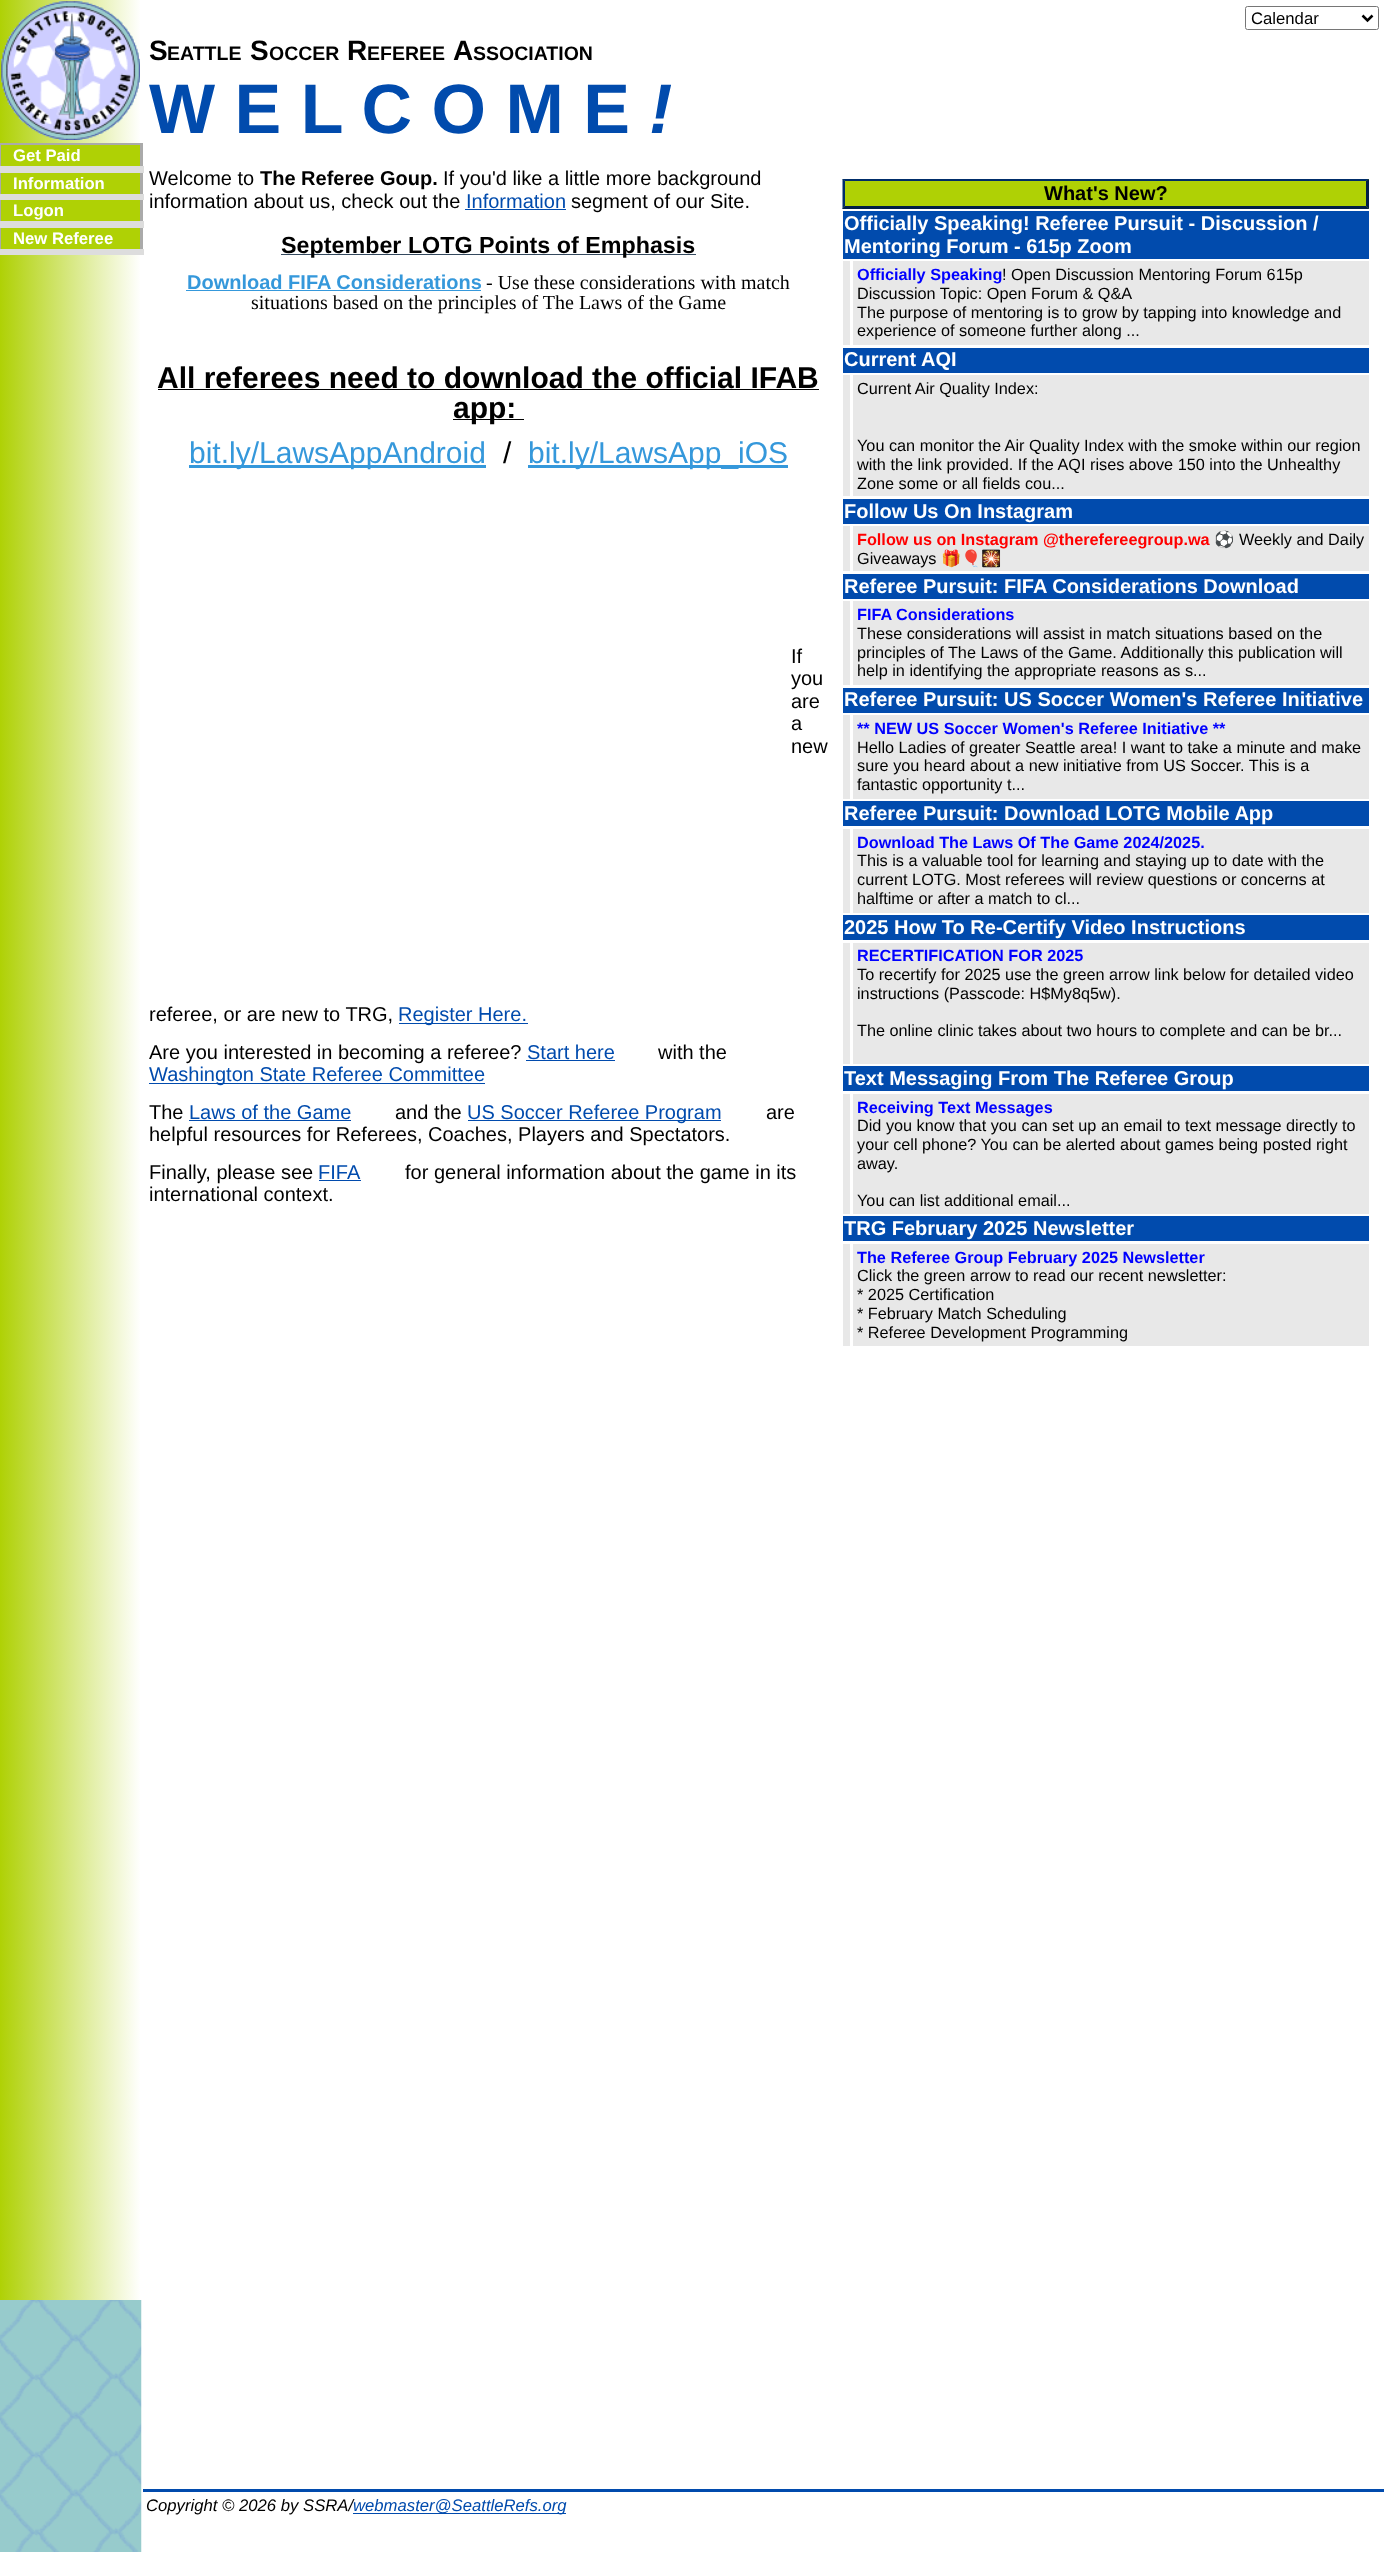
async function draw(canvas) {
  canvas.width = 1385;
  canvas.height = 2552;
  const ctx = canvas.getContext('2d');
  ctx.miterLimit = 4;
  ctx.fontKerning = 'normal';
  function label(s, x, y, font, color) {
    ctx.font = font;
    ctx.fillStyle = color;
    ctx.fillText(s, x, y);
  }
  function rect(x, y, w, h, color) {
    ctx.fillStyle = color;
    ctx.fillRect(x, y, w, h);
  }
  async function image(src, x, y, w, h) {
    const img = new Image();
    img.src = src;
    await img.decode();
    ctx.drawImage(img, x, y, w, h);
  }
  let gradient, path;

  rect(0, 0, 1385, 2552, '#fff');
  gradient = ctx.createLinearGradient(0, 0, 141, 0);
  gradient.addColorStop(0, '#afd105');
  gradient.addColorStop(1, '#fff');
  ctx.fillStyle = gradient;
  ctx.fillRect(0, 0, 140, 2300);
  await image('assets/img1.png', 1, 1, 139, 139);
  ctx.fillStyle = '#aaa';
  ctx.filter = 'blur(0.5px)';
  ctx.beginPath();
  ctx.rect(-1, 143, 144, 30);
  ctx.fill();
  ctx.filter = 'none';
  rect(1, 145, 139, 21, '#afd105');
  ctx.fillStyle = '#aaa';
  ctx.filter = 'blur(0.5px)';
  ctx.beginPath();
  ctx.rect(-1, 168, 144, 32);
  ctx.fill();
  ctx.filter = 'none';
  rect(0, 166, 144, 7, '#ddd');
  label('Get Paid', 13, 161, 'bold 16.7px Liberation Sans', '#fff');
  rect(1, 173, 139, 21, '#afd105');
  ctx.fillStyle = '#aaa';
  ctx.filter = 'blur(0.5px)';
  ctx.beginPath();
  ctx.rect(-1, 195, 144, 33);
  ctx.fill();
  ctx.filter = 'none';
  rect(0, 194, 144, 6, '#ddd');
  label('Information', 13, 189, 'bold 16.7px Liberation Sans', '#fff');
  rect(1, 200, 139, 21, '#afd105');
  ctx.fillStyle = '#aaa';
  ctx.filter = 'blur(0.5px)';
  ctx.beginPath();
  ctx.rect(-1, 223, 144, 32);
  ctx.fill();
  ctx.filter = 'none';
  rect(0, 221, 144, 7, '#ddd');
  label('Logon', 13, 216, 'bold 16.7px Liberation Sans', '#fff');
  rect(1, 228, 139, 21, '#afd105');
  rect(0, 249, 144, 6, '#ddd');
  label('New Referee', 13, 244, 'bold 16.7px Liberation Sans', '#fff');
  ctx.beginPath();
  ctx.roundRect(1245.5, 6.5, 133, 23, 2);
  ctx.strokeStyle = '#767676';
  ctx.stroke();
  path = new Path2D('M1362.5 15.5L1367.5 20.5L1372.5 15.5');
  ctx.strokeStyle = '#000';
  ctx.lineWidth = 2.5;
  ctx.stroke(path);
  label('Calendar', 1251, 24, '16.7px Liberation Sans', '#000');
  label('S', 149, 60, 'bold 28px Liberation Sans', '#000');
  label('EATTLE', 167, 60, 'bold 19.5px Liberation Sans', '#000');
  label('S', 250, 60, 'bold 28px Liberation Sans', '#000');
  label('OCCER', 269, 60, 'bold 19.5px Liberation Sans', '#000');
  label('R', 347, 60, 'bold 28px Liberation Sans', '#000');
  label('EFEREE', 367, 60, 'bold 19.5px Liberation Sans', '#000');
  label('A', 453, 60, 'bold 28px Liberation Sans', '#000');
  label('SSOCIATION', 473, 60, 'bold 19.5px Liberation Sans', '#000');
  label('W E L C O M E', 149, 133, 'bold 70px Liberation Sans', '#014bad');
  label('!', 649, 133, 'italic bold 70px Liberation Sans', '#014bad');
  label('Welcome to', 149, 185, '20px Liberation Sans', '#000');
  label('The Referee Goup.', 260, 185, 'bold 20px Liberation Sans', '#000');
  label('If you\'d like a little more background', 443, 185, '20px Liberation Sans', '#000');
  label('information about us, check out the', 149, 208, '20px Liberation Sans', '#000');
  label('Information', 466, 208, '20px Liberation Sans', '#014bad');
  rect(465, 209, 101, 1, '#014bad');
  label('segment of our Site.', 571, 208, '20px Liberation Sans', '#000');
  rect(281, 254, 415, 1, '#34495e');
  label('September LOTG Points of Emphasis', 281, 253, 'bold 23.3px Liberation Sans', '#000');
  label('Download FIFA Considerations', 187, 289, 'bold 20px Liberation Sans', '#3598db');
  rect(186, 290, 295, 1, '#3598db');
  label('- Use these considerations with match', 486, 289, '20px Liberation Serif', '#000');
  label('situations based on the principles of The Laws of the Game', 251, 309, '20px Liberation Serif', '#000');
  label('All referees need to download the official IFAB', 157, 388, 'bold 30px Liberation Sans', '#000');
  rect(158, 389, 661, 1, '#000');
  rect(453, 419, 71, 1, '#000');
  label('app:', 453, 418, 'bold 30px Liberation Sans', '#000');
  rect(189, 465, 297, 3, '#3598db');
  label('bit.ly/LawsAppAndroid', 189, 463, '30px Liberation Sans', '#3598db');
  label('/', 503, 463, '30px Liberation Sans', '#000');
  rect(528, 465, 260, 3, '#3598db');
  label('bit.ly/LawsApp_iOS', 528, 463, '30px Liberation Sans', '#3598db');
  label('If', 791, 663, '20px Liberation Sans', '#000');
  label('you', 791, 685, '20px Liberation Sans', '#000');
  label('are', 791, 708, '20px Liberation Sans', '#000');
  label('a', 791, 730, '20px Liberation Sans', '#000');
  label('new', 791, 753, '20px Liberation Sans', '#000');
  label('referee, or are new to TRG,', 149, 1021, '20px Liberation Sans', '#000');
  rect(399, 1023, 129, 1, '#014bad');
  label('Register Here.', 398, 1021, '20px Liberation Sans', '#014bad');
  label('Are you interested in becoming a referee?', 149, 1059, '20px Liberation Sans', '#000');
  label('Start here', 527, 1059, '20px Liberation Sans', '#014bad');
  rect(526, 1060, 89, 1, '#014bad');
  label('with the', 658, 1059, '20px Liberation Sans', '#000');
  rect(149, 1083, 336, 1, '#014bad');
  label('Washington State Referee Committee', 149, 1081, '20px Liberation Sans', '#014bad');
  label('The', 149, 1119, '20px Liberation Sans', '#000');
  label('Laws of the Game', 189, 1119, '20px Liberation Sans', '#014bad');
  rect(189, 1120, 162, 1, '#014bad');
  label('and the', 395, 1119, '20px Liberation Sans', '#000');
  rect(468, 1120, 253, 1, '#014bad');
  label('US Soccer Referee Program', 467, 1119, '20px Liberation Sans', '#014bad');
  label('are', 766, 1119, '20px Liberation Sans', '#000');
  label('helpful resources for Referees, Coaches, Players and Spectators.', 149, 1141, '20px Liberation Sans', '#000');
  label('Finally, please see', 149, 1179, '20px Liberation Sans', '#000');
  label('FIFA', 318, 1179, '20px Liberation Sans', '#014bad');
  rect(319, 1180, 42, 1, '#014bad');
  label('for general information about the game in its', 405, 1179, '20px Liberation Sans', '#000');
  label('international context.', 149, 1201, '20px Liberation Sans', '#000');
  rect(843, 179, 526, 30, '#afd105');
  ctx.fillStyle = '#002d6a';
  path = new Path2D('M842 179H1369L1366 181H845Z');
  ctx.fill(path);
  ctx.fillStyle = '#001e47';
  path = new Path2D('M1369 179V209L1366 206V181Z');
  ctx.fill(path);
  path = new Path2D('M1369 209H842L845 206H1366Z');
  ctx.fill(path);
  ctx.fillStyle = '#002d6a';
  path = new Path2D('M842.5 209V179L845 181V206Z');
  ctx.fill(path);
  label('What\'s New?', 1044, 200, 'bold 20px Liberation Sans', '#000');
  rect(843, 211, 526, 48, '#014bad');
  label('Officially Speaking! Referee Pursuit - Discussion /', 844, 230, 'bold 20px Liberation Sans', '#fff');
  label('Mentoring Forum - 615p Zoom', 844, 253, 'bold 20px Liberation Sans', '#fff');
  rect(843, 261, 7, 84, '#e8e8e8');
  rect(853, 261, 516, 84, '#e8e8e8');
  label('Officially Speaking', 857, 280, 'bold 16.25px Liberation Sans', '#00f');
  label('! Open Discussion Mentoring Forum 615p', 1002, 280, '16.25px Liberation Sans', '#000');
  label('Discussion Topic: Open Forum & Q&A', 857, 299, '16.25px Liberation Sans', '#000');
  label('The purpose of mentoring is to grow by tapping into knowledge and', 857, 318, '16.25px Liberation Sans', '#000');
  label('experience of someone further along ...', 857, 336, '16.25px Liberation Sans', '#000');
  rect(843, 348, 526, 25, '#014bad');
  label('Current AQI', 844, 366, 'bold 20px Liberation Sans', '#fff');
  rect(843, 375, 7, 121, '#e8e8e8');
  rect(853, 375, 516, 121, '#e8e8e8');
  label('Current Air Quality Index:', 857, 394, '16.25px Liberation Sans', '#000');
  label('You can monitor the Air Quality Index with the smoke within our region', 857, 451, '16.25px Liberation Sans', '#000');
  label('with the link provided. If the AQI rises above 150 into the Unhealthy', 857, 470, '16.25px Liberation Sans', '#000');
  label('Zone some or all fields cou...', 857, 489, '16.25px Liberation Sans', '#000');
  rect(843, 499, 526, 25, '#014bad');
  label('Follow Us On Instagram', 844, 518, 'bold 20px Liberation Sans', '#fff');
  rect(843, 526, 7, 45, '#e8e8e8');
  rect(853, 526, 516, 45, '#e8e8e8');
  label('Follow us on Instagram @therefereegroup.wa', 857, 545, 'bold 16.25px Liberation Sans', '#f00');
  label('⚽', 1214, 545, '16.25px Noto Color Emoji', '#000');
  label('Weekly and Daily', 1239, 545, '16.25px Liberation Sans', '#000');
  label('Giveaways', 857, 564, '16.25px Liberation Sans', '#000');
  label('🎁🎈🎇', 941, 564, '16.25px Noto Color Emoji', '#000');
  rect(843, 574, 526, 25, '#014bad');
  label('Referee Pursuit: FIFA Considerations Download', 844, 593, 'bold 20px Liberation Sans', '#fff');
  rect(843, 601, 7, 84, '#e8e8e8');
  rect(853, 601, 516, 84, '#e8e8e8');
  label('FIFA Considerations', 857, 620, 'bold 16.25px Liberation Sans', '#00f');
  label('These considerations will assist in match situations based on the', 857, 639, '16.25px Liberation Sans', '#000');
  label('principles of The Laws of the Game. Additionally this publication will', 857, 658, '16.25px Liberation Sans', '#000');
  label('help in identifying the appropriate reasons as s...', 857, 676, '16.25px Liberation Sans', '#000');
  rect(843, 688, 526, 25, '#014bad');
  label('Referee Pursuit: US Soccer Women\'s Referee Initiative', 844, 706, 'bold 20px Liberation Sans', '#fff');
  rect(843, 715, 7, 84, '#e8e8e8');
  rect(853, 715, 516, 84, '#e8e8e8');
  label('** NEW US Soccer Women\'s Referee Initiative **', 857, 734, 'bold 16.25px Liberation Sans', '#00f');
  label('Hello Ladies of greater Seattle area! I want to take a minute and make', 857, 753, '16.25px Liberation Sans', '#000');
  label('sure you heard about a new initiative from US Soccer. This is a', 857, 771, '16.25px Liberation Sans', '#000');
  label('fantastic opportunity t...', 857, 790, '16.25px Liberation Sans', '#000');
  rect(843, 801, 526, 25, '#014bad');
  label('Referee Pursuit: Download LOTG Mobile App', 844, 820, 'bold 20px Liberation Sans', '#fff');
  rect(843, 829, 7, 84, '#e8e8e8');
  rect(853, 829, 516, 84, '#e8e8e8');
  label('Download The Laws Of The Game 2024/2025.', 857, 848, 'bold 16.25px Liberation Sans', '#00f');
  label('This is a valuable tool for learning and staying up to date with the', 857, 866, '16.25px Liberation Sans', '#000');
  label('current LOTG. Most referees will review questions or concerns at', 857, 885, '16.25px Liberation Sans', '#000');
  label('halftime or after a match to cl...', 857, 904, '16.25px Liberation Sans', '#000');
  rect(843, 915, 526, 25, '#014bad');
  label('2025 How To Re-Certify Video Instructions', 844, 934, 'bold 20px Liberation Sans', '#fff');
  rect(843, 943, 7, 121, '#e8e8e8');
  rect(853, 943, 516, 121, '#e8e8e8');
  label('RECERTIFICATION FOR 2025', 857, 961, 'bold 16.25px Liberation Sans', '#00f');
  label('To recertify for 2025 use the green arrow link below for detailed video', 857, 980, '16.25px Liberation Sans', '#000');
  label('instructions (Passcode: H$My8q5w).', 857, 999, '16.25px Liberation Sans', '#000');
  label('The online clinic takes about two hours to complete and can be br...', 857, 1036, '16.25px Liberation Sans', '#000');
  rect(843, 1066, 526, 25, '#014bad');
  label('Text Messaging From The Referee Group', 844, 1085, 'bold 20px Liberation Sans', '#fff');
  rect(843, 1094, 7, 120, '#e8e8e8');
  rect(853, 1094, 516, 120, '#e8e8e8');
  label('Receiving Text Messages', 857, 1113, 'bold 16.25px Liberation Sans', '#00f');
  label('Did you know that you can set up an email to text message directly to', 857, 1131, '16.25px Liberation Sans', '#000');
  label('your cell phone? You can be alerted about games being posted right', 857, 1150, '16.25px Liberation Sans', '#000');
  label('away.', 857, 1169, '16.25px Liberation Sans', '#000');
  label('You can list additional email...', 857, 1206, '16.25px Liberation Sans', '#000');
  rect(843, 1216, 526, 25, '#014bad');
  label('TRG February 2025 Newsletter', 844, 1235, 'bold 20px Liberation Sans', '#fff');
  rect(843, 1244, 7, 102, '#e8e8e8');
  rect(853, 1244, 516, 102, '#e8e8e8');
  label('The Referee Group February 2025 Newsletter', 857, 1263, 'bold 16.25px Liberation Sans', '#00f');
  label('Click the green arrow to read our recent newsletter:', 857, 1281, '16.25px Liberation Sans', '#000');
  label('* 2025 Certification', 857, 1300, '16.25px Liberation Sans', '#000');
  label('* February Match Scheduling', 857, 1319, '16.25px Liberation Sans', '#000');
  label('* Referee Development Programming', 857, 1338, '16.25px Liberation Sans', '#000');
  await image('assets/img2.png', 0, 2300, 142, 252);
  rect(143, 2489, 1241, 3, '#014bad');
  label('Copyright © 2026 by SSRA/', 146, 2511, 'italic 16.7px Liberation Sans', '#000');
  rect(353, 2513, 213, 1, '#014bad');
  label('webmaster@SeattleRefs.org', 353, 2511, 'italic 16.7px Liberation Sans', '#014bad');
}

draw(document.querySelector('canvas'));
